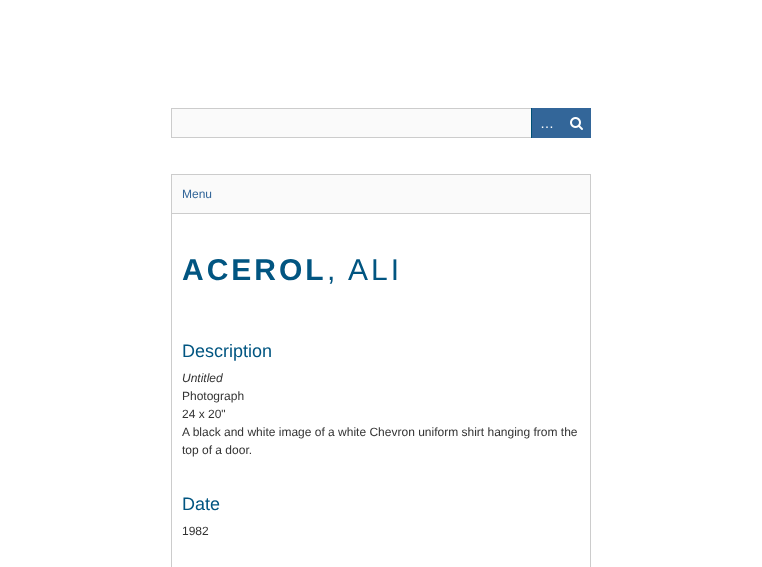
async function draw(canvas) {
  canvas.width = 762;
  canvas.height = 567;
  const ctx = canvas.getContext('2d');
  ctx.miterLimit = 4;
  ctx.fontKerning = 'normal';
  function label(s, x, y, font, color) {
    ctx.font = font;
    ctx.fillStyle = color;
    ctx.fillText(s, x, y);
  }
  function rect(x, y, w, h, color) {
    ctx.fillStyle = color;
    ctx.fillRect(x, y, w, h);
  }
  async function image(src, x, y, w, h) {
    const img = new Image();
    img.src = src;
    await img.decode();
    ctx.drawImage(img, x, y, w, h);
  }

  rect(0, 0, 762, 567, '#fff');
  rect(172, 109, 359, 28, '#fafafa');
  ctx.strokeStyle = '#ccc';
  ctx.strokeRect(171.5, 108.5, 419, 29);
  rect(531, 108, 1, 30, '#005177');
  rect(532, 108, 59, 30, '#369');
  label('…', 540, 128, '14px Liberation Sans', '#fff');
  await image('assets/img1.png', 570, 117, 13, 13);
  rect(172, 175, 418, 38, '#fafafa');
  rect(171, 174, 420, 1, '#ccc');
  rect(590, 174, 1, 39, '#ccc');
  rect(171, 174, 1, 39, '#ccc');
  label('Menu', 182, 198, '12px Liberation Sans', '#369');
  ctx.strokeRect(171.5, 213.5, 419, 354);
  ctx.letterSpacing = '3px';
  label('ACEROL', 182, 280, 'bold 30px Liberation Sans', '#015581');
  label(', ALI', 327, 280, '30px Liberation Sans', '#015581');
  ctx.letterSpacing = '0px';
  label('Description', 182, 357, '18px Liberation Sans', '#015581');
  label('Untitled', 182, 382, 'italic 12px Liberation Sans', '#333');
  label('Photograph', 182, 400, '12px Liberation Sans', '#333');
  label('24 x 20"', 182, 418, '12px Liberation Sans', '#333');
  label('A black and white image of a white Chevron uniform shirt hanging from the', 182, 436, '12px Liberation Sans', '#333');
  label('top of a door.', 182, 454, '12px Liberation Sans', '#333');
  label('Date', 182, 510, '18px Liberation Sans', '#015581');
  label('1982', 182, 535, '12px Liberation Sans', '#333');
}

draw(document.querySelector('canvas'));
